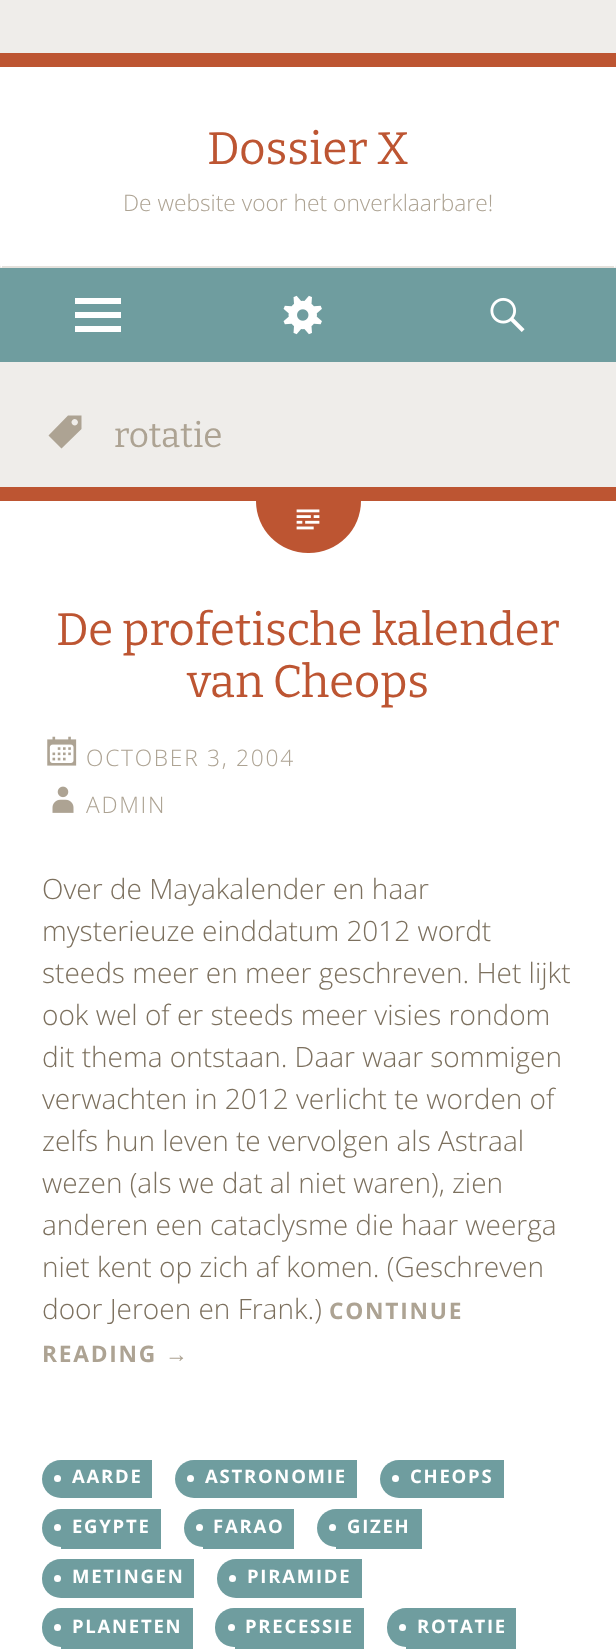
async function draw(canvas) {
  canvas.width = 616;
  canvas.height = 1649;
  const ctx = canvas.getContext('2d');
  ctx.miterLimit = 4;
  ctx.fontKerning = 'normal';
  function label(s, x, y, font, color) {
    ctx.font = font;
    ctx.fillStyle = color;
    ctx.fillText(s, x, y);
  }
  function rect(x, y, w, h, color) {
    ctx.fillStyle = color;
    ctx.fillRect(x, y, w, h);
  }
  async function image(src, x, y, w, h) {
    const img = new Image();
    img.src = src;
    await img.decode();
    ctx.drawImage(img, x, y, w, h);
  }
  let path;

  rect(0, 0, 616, 1649, '#efedea');
  ctx.fillStyle = '#fff';
  ctx.beginPath();
  ctx.roundRect(0, 67, 616, 201, [0, 0, 4, 4]);
  ctx.fill();
  rect(2, 266, 612, 2, '#e4e1dc');
  rect(0, 53, 616, 14, '#bd5532');
  label('Dossier X', 207, 164, '45.5px Bitter', '#bd5532');
  label('De website voor het onverklaarbare!', 123, 211, '300 22.75px Open Sans', '#ada393');
  rect(0, 268, 616, 94, '#6f9d9f');
  ctx.fillStyle = '#fff';
  path = new Path2D('M75 332V326H121V332ZM75 318V312H121V318ZM75 304V298H121V304Z');
  ctx.fill(path);
  await image('assets/img1.png', 283, 295, 39, 40);
  await image('assets/img2.png', 490, 297, 35, 35);
  ctx.fillStyle = '#ada393';
  path = new Path2D('M48.5 435.5L68 415.5H81.5V429L61.5 448.5ZM72.5 420C69.5 423 74 427.5 77 424.5C80 421.5 75.5 417 72.5 420Z');
  ctx.fill(path);
  label('rotatie', 114, 447, '35px Bitter', '#ada393');
  rect(0, 501, 616, 1148, '#fff');
  rect(0, 487, 616, 14, '#bd5532');
  ctx.beginPath();
  ctx.roundRect(256, 501, 105, 52, [0, 0, 52, 52]);
  ctx.fill();
  await image('assets/img3.png', 296, 509, 24, 21);
  label('De profetische kalender', 56, 645, '45.5px Bitter', '#bd5532');
  label('van Cheops', 187, 697, '45.5px Bitter', '#bd5532');
  await image('assets/img4.png', 47, 736, 30, 30);
  ctx.letterSpacing = '1.75px';
  label('OCTOBER 3, 2004', 86, 766, '300 22.75px Open Sans', '#ada393');
  await image('assets/img5.png', 52, 786, 22, 27);
  label('ADMIN', 86, 813, '300 22.75px Open Sans', '#ada393');
  ctx.letterSpacing = '0px';
  label('Over de Mayakalender en haar', 42, 899, '300 28px Open Sans', '#7c705e');
  label('mysterieuze einddatum 2012 wordt', 42, 941, '300 28px Open Sans', '#7c705e');
  label('steeds meer en meer geschreven. Het lijkt', 42, 983, '300 28px Open Sans', '#7c705e');
  label('ook wel of er steeds meer visies rondom', 42, 1025, '300 28px Open Sans', '#7c705e');
  label('dit thema ontstaan. Daar waar sommigen', 42, 1067, '300 28px Open Sans', '#7c705e');
  label('verwachten in 2012 verlicht te worden of', 42, 1109, '300 28px Open Sans', '#7c705e');
  label('zelfs hun leven te vervolgen als Astraal', 42, 1151, '300 28px Open Sans', '#7c705e');
  label('wezen (als we dat al niet waren), zien', 42, 1193, '300 28px Open Sans', '#7c705e');
  label('anderen een cataclysme die haar weerga', 42, 1235, '300 28px Open Sans', '#7c705e');
  label('niet kent op zich af komen. (Geschreven', 42, 1277, '300 28px Open Sans', '#7c705e');
  label('door Jeroen en Frank.)', 42, 1319, '300 28px Open Sans', '#7c705e');
  ctx.letterSpacing = '1.75px';
  label('CONTINUE', 329, 1319, 'bold 22.75px Open Sans', '#ada393');
  label('READING', 42, 1362, 'bold 22.75px Open Sans', '#ada393');
  label('→', 165, 1362, 'bold 22.75px Liberation Sans', '#ada393');
  rect(61, 1460, 91, 38, '#6f9d9f');
  ctx.beginPath();
  ctx.roundRect(42, 1460, 19, 38, [19, 0, 0, 19]);
  ctx.fill();
  label('AARDE', 72, 1483, 'bold 18.5px Open Sans', '#fff');
  ctx.beginPath();
  ctx.arc(57.5, 1478.5, 3.5, 0, 2 * Math.PI);
  ctx.fill();
  rect(194, 1460, 163, 38, '#6f9d9f');
  ctx.beginPath();
  ctx.roundRect(175, 1460, 19, 38, [19, 0, 0, 19]);
  ctx.fill();
  label('ASTRONOMIE', 205, 1483, 'bold 18.5px Open Sans', '#fff');
  ctx.beginPath();
  ctx.arc(190.5, 1478.5, 3.5, 0, 2 * Math.PI);
  ctx.fill();
  rect(399, 1460, 105, 38, '#6f9d9f');
  ctx.beginPath();
  ctx.roundRect(380, 1460, 19, 38, [19, 0, 0, 19]);
  ctx.fill();
  label('CHEOPS', 410, 1483, 'bold 18.5px Open Sans', '#fff');
  ctx.beginPath();
  ctx.arc(395.5, 1478.5, 3.5, 0, 2 * Math.PI);
  ctx.fill();
  rect(61, 1509, 100, 40, '#6f9d9f');
  ctx.beginPath();
  ctx.roundRect(42, 1509, 19, 38, [19, 0, 0, 19]);
  ctx.fill();
  label('EGYPTE', 72, 1533, 'bold 18.5px Open Sans', '#fff');
  ctx.beginPath();
  ctx.arc(57.5, 1527.5, 3.5, 0, 2 * Math.PI);
  ctx.fill();
  rect(203, 1509, 91, 40, '#6f9d9f');
  ctx.beginPath();
  ctx.roundRect(184, 1509, 19, 38, [19, 0, 0, 19]);
  ctx.fill();
  label('FARAO', 213, 1533, 'bold 18.5px Open Sans', '#fff');
  ctx.beginPath();
  ctx.arc(199.5, 1527.5, 3.5, 0, 2 * Math.PI);
  ctx.fill();
  rect(336, 1509, 86, 40, '#6f9d9f');
  ctx.beginPath();
  ctx.roundRect(317, 1509, 19, 38, [19, 0, 0, 19]);
  ctx.fill();
  label('GIZEH', 347, 1533, 'bold 18.5px Open Sans', '#fff');
  ctx.beginPath();
  ctx.arc(332.5, 1527.5, 3.5, 0, 2 * Math.PI);
  ctx.fill();
  rect(61, 1559, 133, 39, '#6f9d9f');
  ctx.beginPath();
  ctx.roundRect(42, 1559, 19, 39, [19, 0, 0, 19]);
  ctx.fill();
  label('METINGEN', 72, 1583, 'bold 18.5px Open Sans', '#fff');
  ctx.beginPath();
  ctx.arc(57.5, 1578.5, 3.5, 0, 2 * Math.PI);
  ctx.fill();
  rect(236, 1559, 126, 39, '#6f9d9f');
  ctx.beginPath();
  ctx.roundRect(217, 1559, 19, 39, [19, 0, 0, 19]);
  ctx.fill();
  label('PIRAMIDE', 247, 1583, 'bold 18.5px Open Sans', '#fff');
  ctx.beginPath();
  ctx.arc(232.5, 1578.5, 3.5, 0, 2 * Math.PI);
  ctx.fill();
  rect(61, 1608, 132, 41, '#6f9d9f');
  ctx.beginPath();
  ctx.roundRect(42, 1608, 19, 39, [19, 0, 0, 19]);
  ctx.fill();
  label('PLANETEN', 72, 1633, 'bold 18.5px Open Sans', '#fff');
  ctx.beginPath();
  ctx.arc(57.5, 1627.5, 3.5, 0, 2 * Math.PI);
  ctx.fill();
  rect(235, 1608, 129, 41, '#6f9d9f');
  ctx.beginPath();
  ctx.roundRect(215, 1608, 20, 39, [19, 0, 0, 19]);
  ctx.fill();
  label('PRECESSIE', 245, 1633, 'bold 18.5px Open Sans', '#fff');
  ctx.beginPath();
  ctx.arc(231.5, 1627.5, 3.5, 0, 2 * Math.PI);
  ctx.fill();
  rect(406, 1608, 110, 41, '#6f9d9f');
  ctx.beginPath();
  ctx.roundRect(387, 1608, 19, 39, [19, 0, 0, 19]);
  ctx.fill();
  label('ROTATIE', 417, 1633, 'bold 18.5px Open Sans', '#fff');
  ctx.beginPath();
  ctx.arc(402.5, 1627.5, 3.5, 0, 2 * Math.PI);
  ctx.fill();
}

draw(document.querySelector('canvas'));
